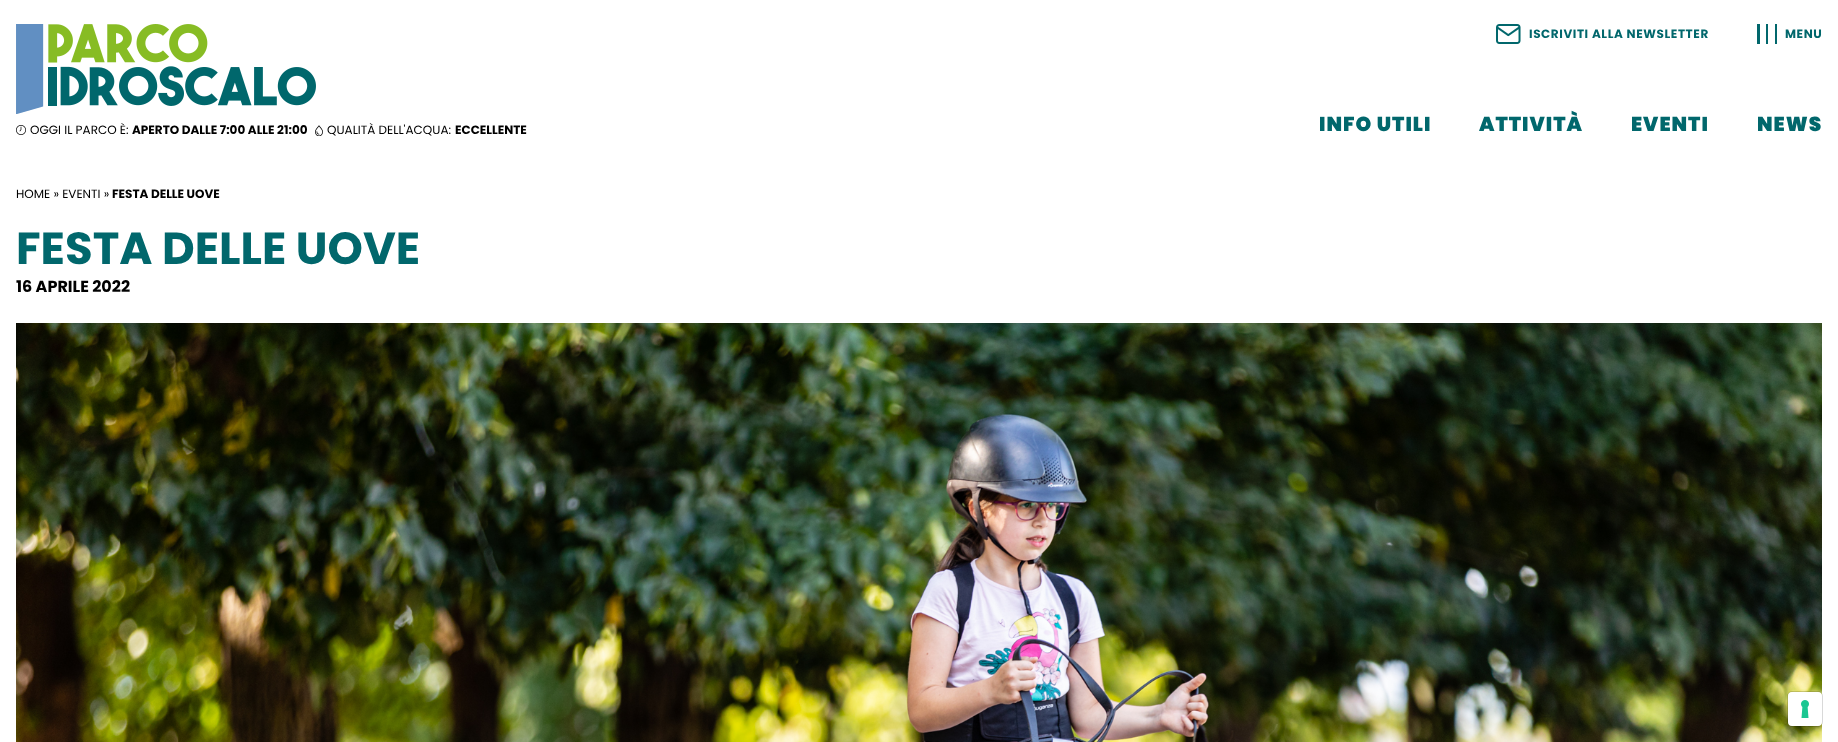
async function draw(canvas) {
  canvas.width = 1838;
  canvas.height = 742;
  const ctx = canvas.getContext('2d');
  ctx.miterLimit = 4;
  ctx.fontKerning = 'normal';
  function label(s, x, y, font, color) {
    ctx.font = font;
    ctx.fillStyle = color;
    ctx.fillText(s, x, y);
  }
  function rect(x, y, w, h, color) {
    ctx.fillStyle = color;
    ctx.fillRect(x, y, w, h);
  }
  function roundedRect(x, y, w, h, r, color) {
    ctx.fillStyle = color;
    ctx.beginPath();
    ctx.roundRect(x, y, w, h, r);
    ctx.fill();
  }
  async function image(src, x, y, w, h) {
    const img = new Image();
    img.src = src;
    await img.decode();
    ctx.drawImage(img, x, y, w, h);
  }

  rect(0, 0, 1838, 742, '#fff');
  await image('assets/img1.png', 16, 24, 300, 90);
  await image('assets/img2.png', 16, 125, 10, 10);
  label('OGGI IL PARCO È:', 30, 134, '12px Poppins', '#000');
  label('APERTO DALLE 7:00 ALLE 21:00', 132, 134, 'bold 12px Poppins', '#000');
  await image('assets/img3.png', 315, 125, 8, 11);
  label('QUALITÀ DELL\'ACQUA:', 327, 134, '12px Poppins', '#000');
  label('ECCELLENTE', 455, 134, 'bold 12px Poppins', '#000');
  await image('assets/img4.png', 1496, 24, 25, 20);
  ctx.letterSpacing = '0.6px';
  label('ISCRIVITI ALLA NEWSLETTER', 1529, 38, 'bold 12px Poppins', '#01676c');
  rect(1757, 24, 3, 20, '#01676c');
  rect(1766, 24, 2, 20, '#01676c');
  rect(1775, 24, 2, 20, '#01676c');
  label('MENU', 1785, 38, 'bold 12px Poppins', '#01676c');
  ctx.letterSpacing = '1px';
  label('INFO UTILI', 1319, 131, '900 20px Poppins', '#01676c');
  label('ATTIVITÀ', 1479, 131, '900 20px Poppins', '#01676c');
  label('EVENTI', 1631, 131, '900 20px Poppins', '#01676c');
  label('NEWS', 1757, 131, '900 20px Poppins', '#01676c');
  ctx.letterSpacing = '0px';
  label('HOME » EVENTI »', 16, 198, '12px Poppins', '#000');
  label('FESTA DELLE UOVE', 112, 198, 'bold 12px Poppins', '#000');
  label('FESTA DELLE UOVE', 16, 264, 'bold 45px Poppins', '#01676c');
  label('16 APRILE 2022', 16, 292, 'bold 16px Poppins', '#000');
  await image('assets/img5.png', 16, 323, 1806, 419);
  ctx.beginPath();
  ctx.roundRect(1787.5, 691.5, 35, 35, 4.5);
  ctx.strokeStyle = '#00000026';
  ctx.stroke();
  roundedRect(1788, 692, 34, 34, 4, '#fff');
  await image('assets/img6.png', 1801, 700, 8, 18);
}

draw(document.querySelector('canvas'));
